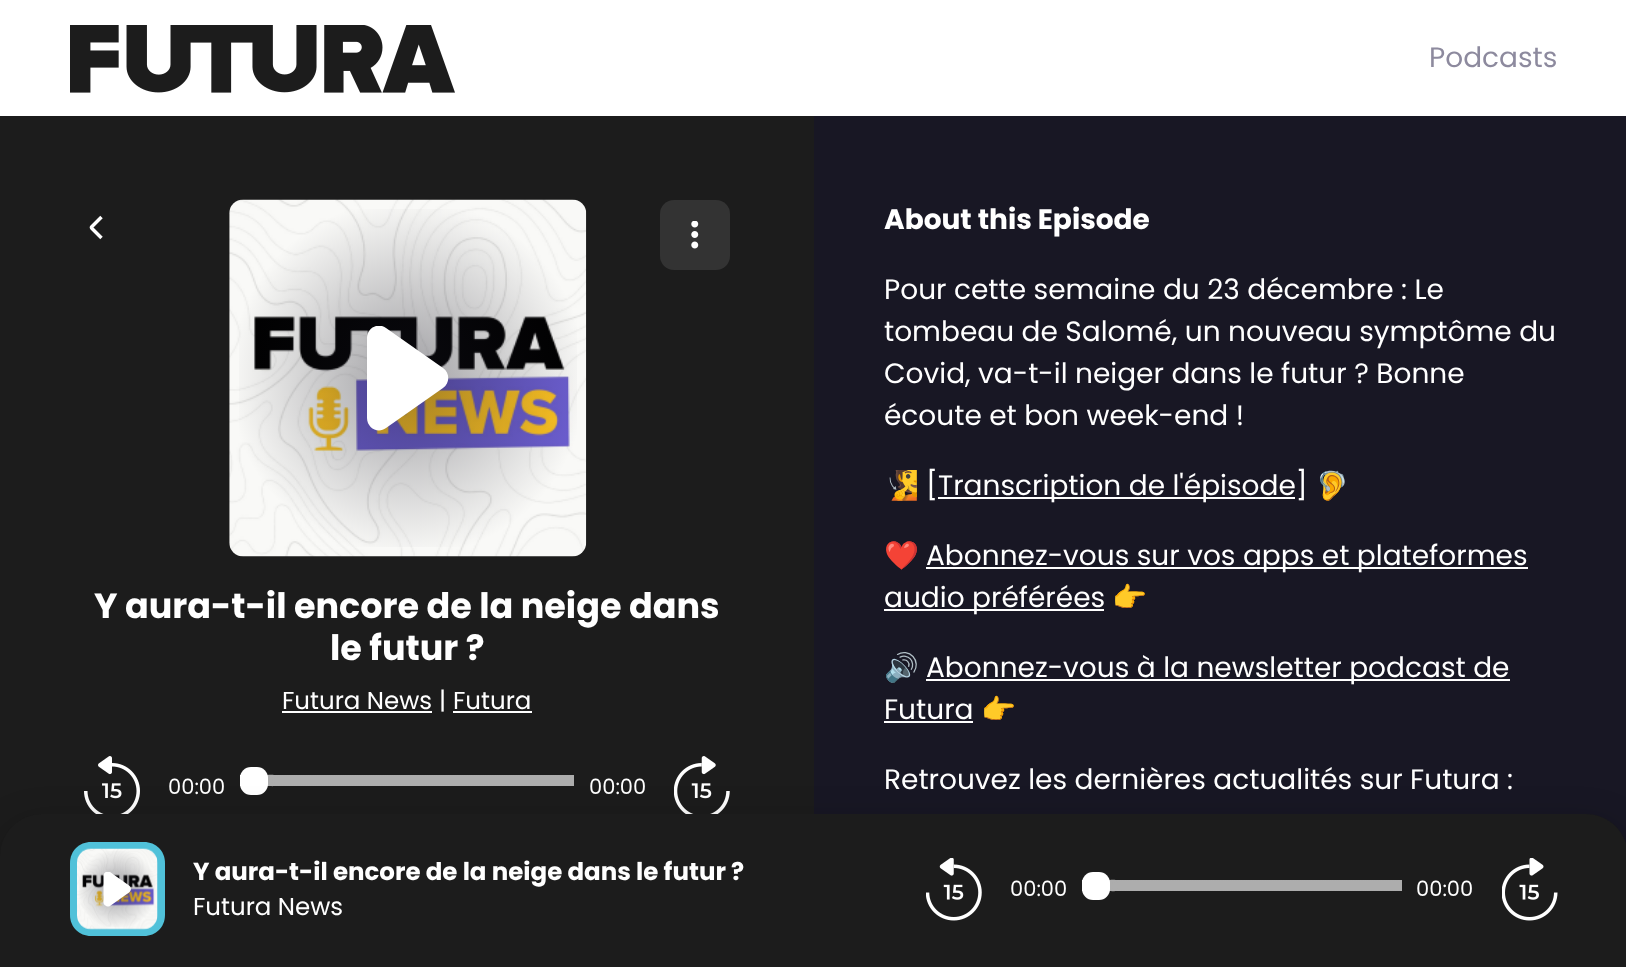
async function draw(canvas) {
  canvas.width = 1626;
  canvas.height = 967;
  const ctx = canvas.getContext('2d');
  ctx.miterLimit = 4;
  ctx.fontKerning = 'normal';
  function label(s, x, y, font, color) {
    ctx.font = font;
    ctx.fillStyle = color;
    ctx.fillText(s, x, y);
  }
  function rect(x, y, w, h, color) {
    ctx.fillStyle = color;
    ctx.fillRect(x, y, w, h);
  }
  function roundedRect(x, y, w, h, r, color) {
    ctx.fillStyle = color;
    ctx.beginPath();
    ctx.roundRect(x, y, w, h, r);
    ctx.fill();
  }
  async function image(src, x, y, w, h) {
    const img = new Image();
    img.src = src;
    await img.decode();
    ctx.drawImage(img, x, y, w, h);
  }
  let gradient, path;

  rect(0, 0, 1626, 967, '#fff');
  await image('assets/img1.png', 70, 25, 385, 68);
  label('Podcasts', 1429, 67, '28px Poppins', '#8d8a9e');
  rect(0, 116, 814, 740, '#1c1c1c');
  await image('assets/img2.png', 229, 199, 358, 358);
  gradient = ctx.createRadialGradient(408, 378, 0, 408, 378, 179);
  gradient.addColorStop(0, '#18172466');
  gradient.addColorStop(1, '#18172400');
  ctx.fillStyle = gradient;
  ctx.fillRect(239, 209, 338, 338);
  ctx.save();
  ctx.beginPath();
  ctx.rect(355, 326, 105, 105);
  ctx.clip();
  ctx.fillStyle = '#fff';
  path = new Path2D('M367 418V338C367 328 378 322 386 328L443 368C450 373 450 383 443 388L386 428C378 434 367 428 367 418Z');
  ctx.fill(path);
  ctx.restore();
  path = new Path2D('M101.5 217L92 226.5C91.5 227 91.5 228 92 228.5L101.5 238');
  ctx.strokeStyle = '#fff';
  ctx.lineWidth = 3.5;
  ctx.stroke(path);
  roundedRect(660, 200, 70, 70, 14, '#333');
  await image('assets/img3.png', 691, 221, 8, 28);
  label('Y aura-t-il encore de la neige dans', 94, 618, 'bold 35px Poppins', '#fff');
  label('le futur ?', 330, 660, 'bold 35px Poppins', '#fff');
  label('Futura News', 282, 709, '24.5px Poppins', '#fff');
  rect(282, 711, 150, 2, '#fff');
  label('|', 439, 709, '24.5px Poppins', '#fff');
  label('Futura', 453, 709, '24.5px Poppins', '#fff');
  rect(453, 711, 79, 2, '#fff');
  await image('assets/img4.png', 84, 756, 56, 58);
  label('00:00', 168, 794, '21px Poppins', '#fff');
  rect(240, 775, 28, 11, '#fff');
  rect(572, 775, 2, 11, '#adadad');
  roundedRect(564, 775, 10, 11, 2, '#adadad');
  roundedRect(562, 775, 10, 11, 2, '#adadad');
  roundedRect(560, 775, 11, 11, 2, '#adadad');
  roundedRect(558, 775, 11, 11, 2, '#adadad');
  roundedRect(557, 775, 10, 11, 2, '#adadad');
  roundedRect(555, 775, 10, 11, 2, '#adadad');
  roundedRect(553, 775, 11, 11, 2, '#adadad');
  roundedRect(551, 775, 11, 11, 2, '#adadad');
  roundedRect(550, 775, 10, 11, 2, '#adadad');
  roundedRect(548, 775, 10, 11, 2, '#adadad');
  roundedRect(546, 775, 11, 11, 2, '#adadad');
  roundedRect(544, 775, 11, 11, 2, '#adadad');
  roundedRect(543, 775, 10, 11, 2, '#adadad');
  roundedRect(541, 775, 10, 11, 2, '#adadad');
  roundedRect(539, 775, 11, 11, 2, '#adadad');
  roundedRect(537, 775, 11, 11, 2, '#adadad');
  roundedRect(536, 775, 10, 11, 2, '#adadad');
  roundedRect(534, 775, 10, 11, 2, '#adadad');
  roundedRect(532, 775, 11, 11, 2, '#adadad');
  roundedRect(530, 775, 11, 11, 2, '#adadad');
  roundedRect(529, 775, 10, 11, 2, '#adadad');
  roundedRect(527, 775, 10, 11, 2, '#adadad');
  roundedRect(525, 775, 11, 11, 2, '#adadad');
  roundedRect(523, 775, 11, 11, 2, '#adadad');
  roundedRect(522, 775, 10, 11, 2, '#adadad');
  roundedRect(520, 775, 10, 11, 2, '#adadad');
  roundedRect(518, 775, 11, 11, 2, '#adadad');
  roundedRect(516, 775, 11, 11, 2, '#adadad');
  roundedRect(515, 775, 10, 11, 2, '#adadad');
  roundedRect(513, 775, 10, 11, 2, '#adadad');
  roundedRect(511, 775, 11, 11, 2, '#adadad');
  roundedRect(509, 775, 11, 11, 2, '#adadad');
  roundedRect(508, 775, 10, 11, 2, '#adadad');
  roundedRect(506, 775, 10, 11, 2, '#adadad');
  roundedRect(504, 775, 11, 11, 2, '#adadad');
  roundedRect(502, 775, 11, 11, 2, '#adadad');
  roundedRect(501, 775, 10, 11, 2, '#adadad');
  roundedRect(499, 775, 10, 11, 2, '#adadad');
  roundedRect(497, 775, 11, 11, 2, '#adadad');
  roundedRect(495, 775, 11, 11, 2, '#adadad');
  roundedRect(494, 775, 10, 11, 2, '#adadad');
  roundedRect(492, 775, 10, 11, 2, '#adadad');
  roundedRect(490, 775, 11, 11, 2, '#adadad');
  roundedRect(488, 775, 11, 11, 2, '#adadad');
  roundedRect(487, 775, 10, 11, 2, '#adadad');
  roundedRect(485, 775, 10, 11, 2, '#adadad');
  roundedRect(483, 775, 11, 11, 2, '#adadad');
  roundedRect(481, 775, 11, 11, 2, '#adadad');
  roundedRect(480, 775, 10, 11, 2, '#adadad');
  roundedRect(478, 775, 10, 11, 2, '#adadad');
  roundedRect(476, 775, 11, 11, 2, '#adadad');
  roundedRect(474, 775, 11, 11, 2, '#adadad');
  roundedRect(473, 775, 10, 11, 2, '#adadad');
  roundedRect(471, 775, 10, 11, 2, '#adadad');
  roundedRect(469, 775, 11, 11, 2, '#adadad');
  roundedRect(467, 775, 11, 11, 2, '#adadad');
  roundedRect(466, 775, 10, 11, 2, '#adadad');
  roundedRect(464, 775, 10, 11, 2, '#adadad');
  roundedRect(462, 775, 11, 11, 2, '#adadad');
  roundedRect(460, 775, 11, 11, 2, '#adadad');
  roundedRect(459, 775, 10, 11, 2, '#adadad');
  roundedRect(457, 775, 10, 11, 2, '#adadad');
  roundedRect(455, 775, 11, 11, 2, '#adadad');
  roundedRect(453, 775, 11, 11, 2, '#adadad');
  roundedRect(452, 775, 10, 11, 2, '#adadad');
  roundedRect(450, 775, 10, 11, 2, '#adadad');
  roundedRect(448, 775, 11, 11, 2, '#adadad');
  roundedRect(446, 775, 11, 11, 2, '#adadad');
  roundedRect(445, 775, 10, 11, 2, '#adadad');
  roundedRect(443, 775, 10, 11, 2, '#adadad');
  roundedRect(441, 775, 11, 11, 2, '#adadad');
  roundedRect(439, 775, 11, 11, 2, '#adadad');
  roundedRect(438, 775, 10, 11, 2, '#adadad');
  roundedRect(436, 775, 10, 11, 2, '#adadad');
  roundedRect(434, 775, 11, 11, 2, '#adadad');
  roundedRect(432, 775, 11, 11, 2, '#adadad');
  roundedRect(431, 775, 10, 11, 2, '#adadad');
  roundedRect(429, 775, 10, 11, 2, '#adadad');
  roundedRect(427, 775, 11, 11, 2, '#adadad');
  roundedRect(425, 775, 11, 11, 2, '#adadad');
  roundedRect(424, 775, 10, 11, 2, '#adadad');
  roundedRect(422, 775, 10, 11, 2, '#adadad');
  roundedRect(420, 775, 11, 11, 2, '#adadad');
  roundedRect(418, 775, 11, 11, 2, '#adadad');
  roundedRect(417, 775, 10, 11, 2, '#adadad');
  roundedRect(415, 775, 10, 11, 2, '#adadad');
  roundedRect(413, 775, 11, 11, 2, '#adadad');
  roundedRect(411, 775, 11, 11, 2, '#adadad');
  roundedRect(410, 775, 10, 11, 2, '#adadad');
  roundedRect(408, 775, 10, 11, 2, '#adadad');
  roundedRect(406, 775, 11, 11, 2, '#adadad');
  roundedRect(404, 775, 11, 11, 2, '#adadad');
  roundedRect(403, 775, 10, 11, 2, '#adadad');
  roundedRect(401, 775, 10, 11, 2, '#adadad');
  roundedRect(399, 775, 11, 11, 2, '#adadad');
  roundedRect(397, 775, 11, 11, 2, '#adadad');
  roundedRect(396, 775, 10, 11, 2, '#adadad');
  roundedRect(394, 775, 10, 11, 2, '#adadad');
  roundedRect(392, 775, 11, 11, 2, '#adadad');
  roundedRect(390, 775, 11, 11, 2, '#adadad');
  roundedRect(389, 775, 10, 11, 2, '#adadad');
  roundedRect(387, 775, 10, 11, 2, '#adadad');
  roundedRect(385, 775, 11, 11, 2, '#adadad');
  roundedRect(383, 775, 11, 11, 2, '#adadad');
  roundedRect(382, 775, 10, 11, 2, '#adadad');
  roundedRect(380, 775, 10, 11, 2, '#adadad');
  roundedRect(378, 775, 11, 11, 2, '#adadad');
  roundedRect(376, 775, 11, 11, 2, '#adadad');
  roundedRect(375, 775, 10, 11, 2, '#adadad');
  roundedRect(373, 775, 10, 11, 2, '#adadad');
  roundedRect(371, 775, 11, 11, 2, '#adadad');
  roundedRect(369, 775, 11, 11, 2, '#adadad');
  roundedRect(368, 775, 10, 11, 2, '#adadad');
  roundedRect(366, 775, 10, 11, 2, '#adadad');
  roundedRect(364, 775, 11, 11, 2, '#adadad');
  roundedRect(362, 775, 11, 11, 2, '#adadad');
  roundedRect(361, 775, 10, 11, 2, '#adadad');
  roundedRect(359, 775, 10, 11, 2, '#adadad');
  roundedRect(357, 775, 11, 11, 2, '#adadad');
  roundedRect(355, 775, 11, 11, 2, '#adadad');
  roundedRect(354, 775, 10, 11, 2, '#adadad');
  roundedRect(352, 775, 10, 11, 2, '#adadad');
  roundedRect(350, 775, 11, 11, 2, '#adadad');
  roundedRect(348, 775, 11, 11, 2, '#adadad');
  roundedRect(347, 775, 10, 11, 2, '#adadad');
  roundedRect(345, 775, 10, 11, 2, '#adadad');
  roundedRect(343, 775, 11, 11, 2, '#adadad');
  roundedRect(341, 775, 11, 11, 2, '#adadad');
  roundedRect(340, 775, 10, 11, 2, '#adadad');
  roundedRect(338, 775, 10, 11, 2, '#adadad');
  roundedRect(336, 775, 11, 11, 2, '#adadad');
  roundedRect(334, 775, 11, 11, 2, '#adadad');
  roundedRect(333, 775, 10, 11, 2, '#adadad');
  roundedRect(331, 775, 10, 11, 2, '#adadad');
  roundedRect(329, 775, 11, 11, 2, '#adadad');
  roundedRect(327, 775, 11, 11, 2, '#adadad');
  roundedRect(326, 775, 10, 11, 2, '#adadad');
  roundedRect(324, 775, 10, 11, 2, '#adadad');
  roundedRect(322, 775, 11, 11, 2, '#adadad');
  roundedRect(320, 775, 11, 11, 2, '#adadad');
  roundedRect(319, 775, 10, 11, 2, '#adadad');
  roundedRect(317, 775, 10, 11, 2, '#adadad');
  roundedRect(315, 775, 11, 11, 2, '#adadad');
  roundedRect(313, 775, 11, 11, 2, '#adadad');
  roundedRect(312, 775, 10, 11, 2, '#adadad');
  roundedRect(310, 775, 10, 11, 2, '#adadad');
  roundedRect(308, 775, 11, 11, 2, '#adadad');
  roundedRect(306, 775, 11, 11, 2, '#adadad');
  roundedRect(305, 775, 10, 11, 2, '#adadad');
  roundedRect(303, 775, 10, 11, 2, '#adadad');
  roundedRect(301, 775, 11, 11, 2, '#adadad');
  roundedRect(299, 775, 11, 11, 2, '#adadad');
  roundedRect(298, 775, 10, 11, 2, '#adadad');
  roundedRect(296, 775, 10, 11, 2, '#adadad');
  roundedRect(294, 775, 11, 11, 2, '#adadad');
  roundedRect(292, 775, 11, 11, 2, '#adadad');
  roundedRect(291, 775, 10, 11, 2, '#adadad');
  roundedRect(289, 775, 10, 11, 2, '#adadad');
  roundedRect(287, 775, 11, 11, 2, '#adadad');
  roundedRect(285, 775, 11, 11, 2, '#adadad');
  roundedRect(284, 775, 10, 11, 2, '#adadad');
  roundedRect(282, 775, 10, 11, 2, '#adadad');
  roundedRect(280, 775, 11, 11, 2, '#adadad');
  roundedRect(278, 775, 11, 11, 2, '#adadad');
  roundedRect(277, 775, 10, 11, 2, '#adadad');
  roundedRect(275, 775, 10, 11, 2, '#adadad');
  roundedRect(273, 775, 11, 11, 2, '#adadad');
  roundedRect(271, 775, 11, 11, 2, '#adadad');
  roundedRect(270, 775, 10, 11, 2, '#adadad');
  roundedRect(268, 775, 10, 11, 2, '#adadad');
  path = new Path2D('M268 775H267.5V786H272.5C277 786 277 786 277 781.5C277 780 278 775 275 775Z');
  ctx.fill(path);
  path = new Path2D('M267.5 786C274.5 786 275 787.5 275 780.5C275 773.5 274.5 775 267.5 775Z');
  ctx.fill(path);
  path = new Path2D('M267.5 786C273 786 273 786 273 780.5C273 775 273 775 267.5 775Z');
  ctx.fill(path);
  path = new Path2D('M267.5 786C272 786 271 784 271 780.5C271 777 272 775 267.5 775Z');
  ctx.fill(path);
  roundedRect(240, 767, 28, 28, 11, '#fff');
  label('00:00', 589, 794, '21px Poppins', '#fff');
  await image('assets/img5.png', 674, 756, 56, 58);
  rect(814, 116, 812, 728, '#181724');
  label('About this Episode', 884, 229, 'bold 28px Poppins', '#fff');
  label('Pour cette semaine du 23 décembre : Le', 884, 299, '28px Poppins', '#fff');
  label('tombeau de Salomé, un nouveau symptôme du', 884, 341, '28px Poppins', '#fff');
  label('Covid, va-t-il neiger dans le futur ? Bonne', 884, 383, '28px Poppins', '#fff');
  label('écoute et bon week-end !', 884, 425, '28px Poppins', '#fff');
  label('🧏', 884, 495, '28px Noto Color Emoji', '#fff');
  label('[', 926, 495, '28px Poppins', '#fff');
  rect(938, 497, 357, 2, '#fff');
  label('Transcription de l\'épisode]', 938, 495, '28px Poppins', '#fff');
  label('🦻', 1315, 495, '28px Noto Color Emoji', '#fff');
  label('❤️', 884, 565, '28px Noto Color Emoji', '#fff');
  rect(926, 567, 602, 2, '#fff');
  label('Abonnez-vous sur vos apps et plateformes', 926, 565, '28px Poppins', '#fff');
  rect(884, 609, 220, 2, '#fff');
  label('audio préférées', 884, 607, '28px Poppins', '#fff');
  label('👉', 1112, 607, '28px Noto Color Emoji', '#fff');
  label('🔊', 884, 677, '28px Noto Color Emoji', '#fff');
  rect(926, 679, 584, 2, '#fff');
  label('Abonnez-vous à la newsletter podcast de', 926, 677, '28px Poppins', '#fff');
  label('Futura', 884, 719, '28px Poppins', '#fff');
  rect(884, 721, 89, 2, '#fff');
  label('👉', 981, 719, '28px Noto Color Emoji', '#fff');
  label('Retrouvez les dernières actualités sur Futura :', 884, 789, '28px Poppins', '#fff');
  ctx.fillStyle = '#1c1c1c';
  path = new Path2D('M42 814H1586C1609 814 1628 833 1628 856V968H0V856C0 833 19 814 42 814Z');
  ctx.fill(path);
  ctx.save();
  path = new Path2D('M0 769H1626V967H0ZM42 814H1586C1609 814 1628 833 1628 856V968H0V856C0 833 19 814 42 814Z');
  ctx.clip(path, 'evenodd');
  ctx.fillStyle = '#0000003d';
  ctx.filter = 'blur(17.5px)';
  ctx.beginPath();
  ctx.roundRect(0, 823, 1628, 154, 42);
  ctx.fill();
  ctx.filter = 'none';
  ctx.restore();
  ctx.fillStyle = '#50c1d9';
  path = new Path2D('M91 842H144C156 842 165 851 165 863V915C165 927 156 936 144 936H91C79 936 70 927 70 915V863C70 851 79 842 91 842Z');
  ctx.fill(path);
  await image('assets/img6.png', 77, 848, 81, 82);
  gradient = ctx.createRadialGradient(117, 889, 0, 117, 889, 40);
  gradient.addColorStop(0, '#18172466');
  gradient.addColorStop(1, '#18172400');
  ctx.fillStyle = gradient;
  ctx.fillRect(79, 851, 76, 76);
  ctx.save();
  ctx.beginPath();
  ctx.rect(100, 872, 35, 35);
  ctx.clip();
  ctx.fillStyle = '#fff';
  path = new Path2D('M103.5 902.5V875.5C103.5 872.5 107.5 870.5 110 872L129 885.5C131.5 887.5 131.5 890.5 129 892.5L110 906C107.5 907.5 103.5 905.5 103.5 902.5Z');
  ctx.fill(path);
  ctx.restore();
  label('Y aura-t-il encore de la neige dans le futur ?', 193, 880, 'bold 24.5px Poppins', '#fff');
  label('Futura News', 193, 915, '24.5px Poppins', '#fff');
  await image('assets/img7.png', 926, 858, 56, 63);
  label('00:00', 1010, 896, '21px Poppins', '#fff');
  rect(1082, 880, 28, 11, '#fff');
  rect(1400, 880, 2, 11, '#adadad');
  roundedRect(1391, 880, 11, 11, 2, '#adadad');
  roundedRect(1390, 880, 10, 11, 2, '#adadad');
  roundedRect(1388, 880, 10, 11, 2, '#adadad');
  roundedRect(1386, 880, 11, 11, 2, '#adadad');
  roundedRect(1384, 880, 11, 11, 2, '#adadad');
  roundedRect(1383, 880, 10, 11, 2, '#adadad');
  roundedRect(1381, 880, 10, 11, 2, '#adadad');
  roundedRect(1379, 880, 11, 11, 2, '#adadad');
  roundedRect(1377, 880, 11, 11, 2, '#adadad');
  roundedRect(1376, 880, 10, 11, 2, '#adadad');
  roundedRect(1374, 880, 10, 11, 2, '#adadad');
  roundedRect(1372, 880, 11, 11, 2, '#adadad');
  roundedRect(1370, 880, 11, 11, 2, '#adadad');
  roundedRect(1369, 880, 10, 11, 2, '#adadad');
  roundedRect(1367, 880, 10, 11, 2, '#adadad');
  roundedRect(1365, 880, 11, 11, 2, '#adadad');
  roundedRect(1363, 880, 11, 11, 2, '#adadad');
  roundedRect(1362, 880, 10, 11, 2, '#adadad');
  roundedRect(1360, 880, 10, 11, 2, '#adadad');
  roundedRect(1358, 880, 11, 11, 2, '#adadad');
  roundedRect(1356, 880, 11, 11, 2, '#adadad');
  roundedRect(1355, 880, 10, 11, 2, '#adadad');
  roundedRect(1353, 880, 10, 11, 2, '#adadad');
  roundedRect(1351, 880, 11, 11, 2, '#adadad');
  roundedRect(1349, 880, 11, 11, 2, '#adadad');
  roundedRect(1348, 880, 10, 11, 2, '#adadad');
  roundedRect(1346, 880, 10, 11, 2, '#adadad');
  roundedRect(1344, 880, 11, 11, 2, '#adadad');
  roundedRect(1342, 880, 11, 11, 2, '#adadad');
  roundedRect(1341, 880, 10, 11, 2, '#adadad');
  roundedRect(1339, 880, 10, 11, 2, '#adadad');
  roundedRect(1337, 880, 11, 11, 2, '#adadad');
  roundedRect(1335, 880, 11, 11, 2, '#adadad');
  roundedRect(1334, 880, 10, 11, 2, '#adadad');
  roundedRect(1332, 880, 10, 11, 2, '#adadad');
  roundedRect(1330, 880, 11, 11, 2, '#adadad');
  roundedRect(1328, 880, 11, 11, 2, '#adadad');
  roundedRect(1327, 880, 10, 11, 2, '#adadad');
  roundedRect(1325, 880, 10, 11, 2, '#adadad');
  roundedRect(1323, 880, 11, 11, 2, '#adadad');
  roundedRect(1321, 880, 11, 11, 2, '#adadad');
  roundedRect(1320, 880, 10, 11, 2, '#adadad');
  roundedRect(1318, 880, 10, 11, 2, '#adadad');
  roundedRect(1316, 880, 11, 11, 2, '#adadad');
  roundedRect(1314, 880, 11, 11, 2, '#adadad');
  roundedRect(1313, 880, 10, 11, 2, '#adadad');
  roundedRect(1311, 880, 10, 11, 2, '#adadad');
  roundedRect(1309, 880, 11, 11, 2, '#adadad');
  roundedRect(1307, 880, 11, 11, 2, '#adadad');
  roundedRect(1306, 880, 10, 11, 2, '#adadad');
  roundedRect(1304, 880, 10, 11, 2, '#adadad');
  roundedRect(1302, 880, 11, 11, 2, '#adadad');
  roundedRect(1300, 880, 11, 11, 2, '#adadad');
  roundedRect(1299, 880, 10, 11, 2, '#adadad');
  roundedRect(1297, 880, 10, 11, 2, '#adadad');
  roundedRect(1295, 880, 11, 11, 2, '#adadad');
  roundedRect(1293, 880, 11, 11, 2, '#adadad');
  roundedRect(1292, 880, 10, 11, 2, '#adadad');
  roundedRect(1290, 880, 10, 11, 2, '#adadad');
  roundedRect(1288, 880, 11, 11, 2, '#adadad');
  roundedRect(1286, 880, 11, 11, 2, '#adadad');
  roundedRect(1285, 880, 10, 11, 2, '#adadad');
  roundedRect(1283, 880, 10, 11, 2, '#adadad');
  roundedRect(1281, 880, 11, 11, 2, '#adadad');
  roundedRect(1279, 880, 11, 11, 2, '#adadad');
  roundedRect(1278, 880, 10, 11, 2, '#adadad');
  roundedRect(1276, 880, 10, 11, 2, '#adadad');
  roundedRect(1274, 880, 11, 11, 2, '#adadad');
  roundedRect(1272, 880, 11, 11, 2, '#adadad');
  roundedRect(1271, 880, 10, 11, 2, '#adadad');
  roundedRect(1269, 880, 10, 11, 2, '#adadad');
  roundedRect(1267, 880, 11, 11, 2, '#adadad');
  roundedRect(1265, 880, 11, 11, 2, '#adadad');
  roundedRect(1264, 880, 10, 11, 2, '#adadad');
  roundedRect(1262, 880, 10, 11, 2, '#adadad');
  roundedRect(1260, 880, 11, 11, 2, '#adadad');
  roundedRect(1258, 880, 11, 11, 2, '#adadad');
  roundedRect(1257, 880, 10, 11, 2, '#adadad');
  roundedRect(1255, 880, 10, 11, 2, '#adadad');
  roundedRect(1253, 880, 11, 11, 2, '#adadad');
  roundedRect(1251, 880, 11, 11, 2, '#adadad');
  roundedRect(1250, 880, 10, 11, 2, '#adadad');
  roundedRect(1248, 880, 10, 11, 2, '#adadad');
  roundedRect(1246, 880, 11, 11, 2, '#adadad');
  roundedRect(1244, 880, 11, 11, 2, '#adadad');
  roundedRect(1243, 880, 10, 11, 2, '#adadad');
  roundedRect(1241, 880, 10, 11, 2, '#adadad');
  roundedRect(1239, 880, 11, 11, 2, '#adadad');
  roundedRect(1237, 880, 11, 11, 2, '#adadad');
  roundedRect(1236, 880, 10, 11, 2, '#adadad');
  roundedRect(1234, 880, 10, 11, 2, '#adadad');
  roundedRect(1232, 880, 11, 11, 2, '#adadad');
  roundedRect(1230, 880, 11, 11, 2, '#adadad');
  roundedRect(1229, 880, 10, 11, 2, '#adadad');
  roundedRect(1227, 880, 10, 11, 2, '#adadad');
  roundedRect(1225, 880, 11, 11, 2, '#adadad');
  roundedRect(1223, 880, 11, 11, 2, '#adadad');
  roundedRect(1222, 880, 10, 11, 2, '#adadad');
  roundedRect(1220, 880, 10, 11, 2, '#adadad');
  roundedRect(1218, 880, 11, 11, 2, '#adadad');
  roundedRect(1216, 880, 11, 11, 2, '#adadad');
  roundedRect(1215, 880, 10, 11, 2, '#adadad');
  roundedRect(1213, 880, 10, 11, 2, '#adadad');
  roundedRect(1211, 880, 11, 11, 2, '#adadad');
  roundedRect(1209, 880, 11, 11, 2, '#adadad');
  roundedRect(1208, 880, 10, 11, 2, '#adadad');
  roundedRect(1206, 880, 10, 11, 2, '#adadad');
  roundedRect(1204, 880, 11, 11, 2, '#adadad');
  roundedRect(1202, 880, 11, 11, 2, '#adadad');
  roundedRect(1201, 880, 10, 11, 2, '#adadad');
  roundedRect(1199, 880, 10, 11, 2, '#adadad');
  roundedRect(1197, 880, 11, 11, 2, '#adadad');
  roundedRect(1195, 880, 11, 11, 2, '#adadad');
  roundedRect(1194, 880, 10, 11, 2, '#adadad');
  roundedRect(1192, 880, 10, 11, 2, '#adadad');
  roundedRect(1190, 880, 11, 11, 2, '#adadad');
  roundedRect(1188, 880, 11, 11, 2, '#adadad');
  roundedRect(1187, 880, 10, 11, 2, '#adadad');
  roundedRect(1185, 880, 10, 11, 2, '#adadad');
  roundedRect(1183, 880, 11, 11, 2, '#adadad');
  roundedRect(1181, 880, 11, 11, 2, '#adadad');
  roundedRect(1180, 880, 10, 11, 2, '#adadad');
  roundedRect(1178, 880, 10, 11, 2, '#adadad');
  roundedRect(1176, 880, 11, 11, 2, '#adadad');
  roundedRect(1174, 880, 11, 11, 2, '#adadad');
  roundedRect(1173, 880, 10, 11, 2, '#adadad');
  roundedRect(1171, 880, 10, 11, 2, '#adadad');
  roundedRect(1169, 880, 11, 11, 2, '#adadad');
  roundedRect(1167, 880, 11, 11, 2, '#adadad');
  roundedRect(1166, 880, 10, 11, 2, '#adadad');
  roundedRect(1164, 880, 10, 11, 2, '#adadad');
  roundedRect(1162, 880, 11, 11, 2, '#adadad');
  roundedRect(1160, 880, 11, 11, 2, '#adadad');
  roundedRect(1159, 880, 10, 11, 2, '#adadad');
  roundedRect(1157, 880, 10, 11, 2, '#adadad');
  roundedRect(1155, 880, 11, 11, 2, '#adadad');
  roundedRect(1153, 880, 11, 11, 2, '#adadad');
  roundedRect(1152, 880, 10, 11, 2, '#adadad');
  roundedRect(1150, 880, 10, 11, 2, '#adadad');
  roundedRect(1148, 880, 11, 11, 2, '#adadad');
  roundedRect(1146, 880, 11, 11, 2, '#adadad');
  roundedRect(1145, 880, 10, 11, 2, '#adadad');
  roundedRect(1143, 880, 10, 11, 2, '#adadad');
  roundedRect(1141, 880, 11, 11, 2, '#adadad');
  roundedRect(1139, 880, 11, 11, 2, '#adadad');
  roundedRect(1138, 880, 10, 11, 2, '#adadad');
  roundedRect(1136, 880, 10, 11, 2, '#adadad');
  roundedRect(1134, 880, 11, 11, 2, '#adadad');
  roundedRect(1132, 880, 11, 11, 2, '#adadad');
  roundedRect(1131, 880, 10, 11, 2, '#adadad');
  roundedRect(1129, 880, 10, 11, 2, '#adadad');
  roundedRect(1127, 880, 11, 11, 2, '#adadad');
  roundedRect(1125, 880, 11, 11, 2, '#adadad');
  roundedRect(1124, 880, 10, 11, 2, '#adadad');
  roundedRect(1122, 880, 10, 11, 2, '#adadad');
  roundedRect(1120, 880, 11, 11, 2, '#adadad');
  roundedRect(1118, 880, 11, 11, 2, '#adadad');
  roundedRect(1117, 880, 10, 11, 2, '#adadad');
  roundedRect(1115, 880, 10, 11, 2, '#adadad');
  roundedRect(1113, 880, 11, 11, 2, '#adadad');
  roundedRect(1111, 880, 11, 11, 2, '#adadad');
  roundedRect(1110, 880, 10, 11, 2, '#adadad');
  path = new Path2D('M1110 880H1109.5V891H1113C1118.5 891 1118 891 1118 885.5C1118 884 1118.5 880 1116 880Z');
  ctx.fill(path);
  path = new Path2D('M1109.5 891C1111 891 1116.5 892 1117 889.5V881.5C1116.5 879 1111 880 1109.5 880Z');
  ctx.fill(path);
  path = new Path2D('M1109.5 891C1115 891 1115 891.5 1115 885.5C1115 879.5 1115 880 1109.5 880Z');
  ctx.fill(path);
  path = new Path2D('M1109.5 891C1113.5 891 1113 889.5 1113 885.5C1113 881.5 1113.5 880 1109.5 880Z');
  ctx.fill(path);
  roundedRect(1082, 872, 28, 28, 11, '#fff');
  label('00:00', 1416, 896, '21px Poppins', '#fff');
  await image('assets/img8.png', 1502, 858, 56, 63);
}

draw(document.querySelector('canvas'));
